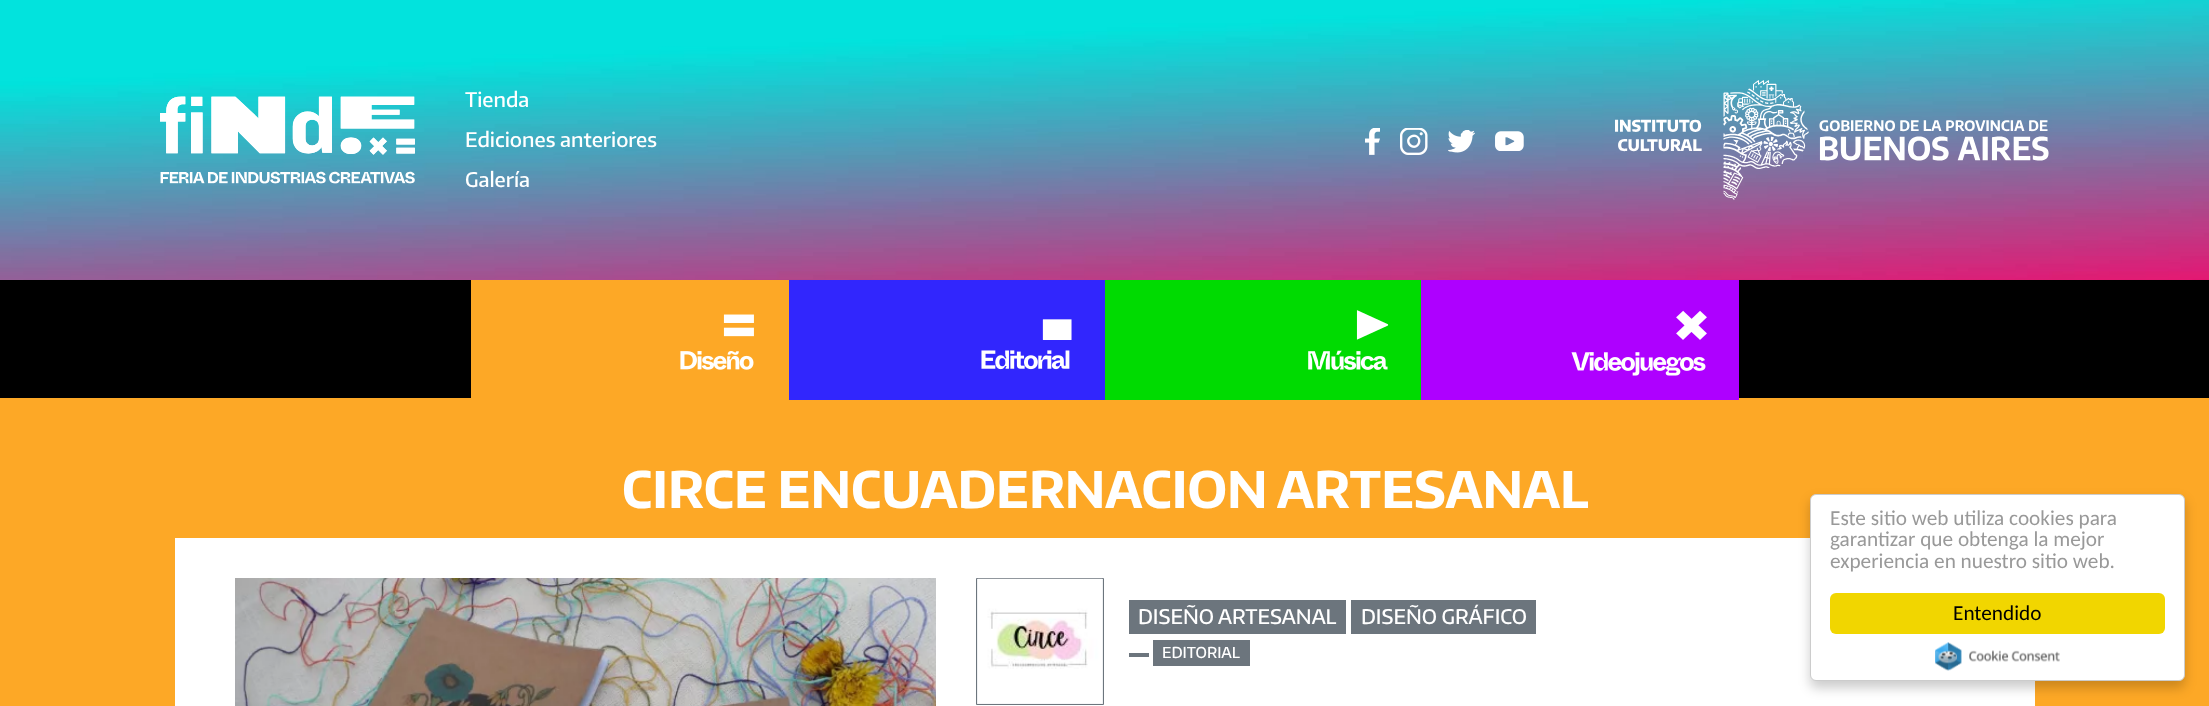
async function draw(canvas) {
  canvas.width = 2209;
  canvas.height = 706;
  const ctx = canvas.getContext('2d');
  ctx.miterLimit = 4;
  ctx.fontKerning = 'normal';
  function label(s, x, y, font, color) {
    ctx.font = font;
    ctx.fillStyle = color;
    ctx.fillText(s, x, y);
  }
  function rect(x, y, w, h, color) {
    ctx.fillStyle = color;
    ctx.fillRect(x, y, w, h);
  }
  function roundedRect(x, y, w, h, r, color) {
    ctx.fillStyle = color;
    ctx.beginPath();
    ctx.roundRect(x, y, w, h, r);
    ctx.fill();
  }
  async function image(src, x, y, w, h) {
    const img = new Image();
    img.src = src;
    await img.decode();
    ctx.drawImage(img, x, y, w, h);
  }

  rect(0, 0, 2209, 706, '#000');
  await image('assets/img1.png', 0, 0, 2209, 280);
  await image('assets/img2.png', 160, 96, 255, 88);
  label('Tienda', 465, 107, '500 20px Encode Sans', '#fff');
  label('Ediciones anteriores', 465, 147, '500 20px Encode Sans', '#fff');
  label('Galería', 465, 187, '500 20px Encode Sans', '#fff');
  await image('assets/img3.png', 1365, 128, 15, 27);
  await image('assets/img4.png', 1400, 128, 28, 27);
  await image('assets/img5.png', 1448, 130, 27, 23);
  await image('assets/img6.png', 1495, 131, 29, 20);
  await image('assets/img7.png', 1615, 80, 434, 120);
  rect(471, 280, 318, 118, '#fda826');
  await image('assets/img8.png', 680, 314, 74, 56);
  rect(0, 398, 2209, 308, '#fda826');
  rect(789, 280, 316, 120, '#3126fd');
  await image('assets/img9.png', 981, 319, 91, 51);
  rect(1105, 280, 316, 120, '#00db01');
  await image('assets/img10.png', 1308, 310, 81, 60);
  rect(1421, 280, 318, 120, '#ae00ff');
  await image('assets/img11.png', 1571, 310, 136, 66);
  label('CIRCE ENCUADERNACION ARTESANAL', 622, 508, 'bold 50px Encode Sans', '#fff');
  rect(175, 538, 1860, 168, '#fff');
  await image('assets/img12.png', 235, 578, 701, 128);
  ctx.fillStyle = '#dee2e6';
  ctx.beginPath();
  ctx.rect(976.5, 578.5, 127, 126);
  ctx.fill();
  ctx.strokeStyle = '#6c757d';
  ctx.stroke();
  await image('assets/img13.png', 977, 578, 126, 126);
  rect(1129, 600, 217, 34, '#6c757d');
  label('DISEÑO ARTESANAL', 1138, 624, '500 20px Encode Sans', '#fff');
  rect(1351, 600, 185, 34, '#6c757d');
  label('DISEÑO GRÁFICO', 1361, 624, '500 20px Encode Sans', '#fff');
  rect(1129, 653, 20, 4, '#6c757d');
  rect(1153, 640, 97, 26, '#6c757d');
  label('EDITORIAL', 1162, 658, '500 15px Encode Sans', '#fff');
  ctx.fillStyle = '#00000033';
  ctx.filter = 'blur(6px)';
  ctx.beginPath();
  ctx.roundRect(1810, 500, 375, 188, 6);
  ctx.fill();
  ctx.filter = 'none';
  ctx.fillStyle = '#fff';
  ctx.beginPath();
  ctx.roundRect(1810.5, 494.5, 374, 186, 5.5);
  ctx.fill();
  ctx.strokeStyle = '#ccc';
  ctx.stroke();
  label('Este sitio web utiliza cookies para', 1830, 525, '21.25px Carlito', '#999');
  label('garantizar que obtenga la mejor', 1830, 546, '21.25px Carlito', '#999');
  label('experiencia en nuestro sitio web.', 1830, 568, '21.25px Carlito', '#999');
  roundedRect(1830, 593, 335, 41, 6, '#f1d600');
  label('Entendido', 1953, 620, '21.25px Carlito', '#000');
  await image('assets/img14.png', 1935, 642, 125, 29);
}

draw(document.querySelector('canvas'));
